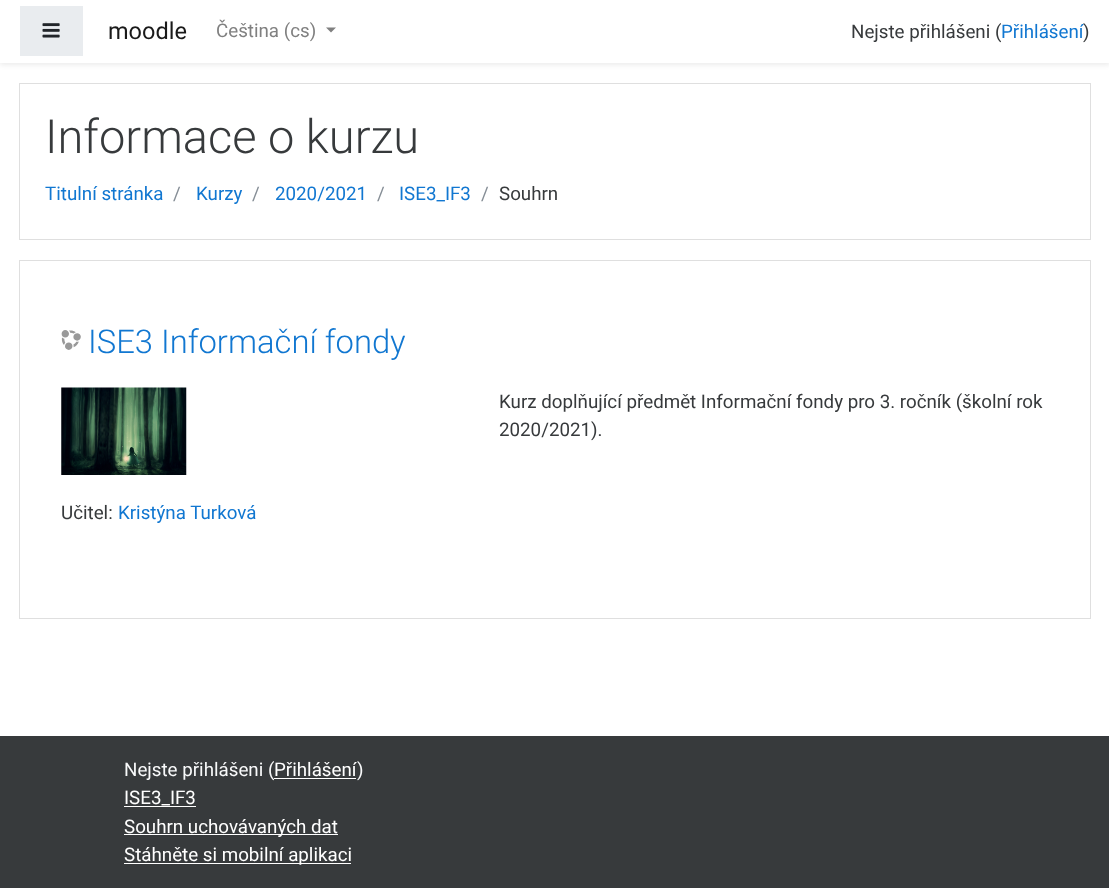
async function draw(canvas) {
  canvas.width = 1109;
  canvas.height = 888;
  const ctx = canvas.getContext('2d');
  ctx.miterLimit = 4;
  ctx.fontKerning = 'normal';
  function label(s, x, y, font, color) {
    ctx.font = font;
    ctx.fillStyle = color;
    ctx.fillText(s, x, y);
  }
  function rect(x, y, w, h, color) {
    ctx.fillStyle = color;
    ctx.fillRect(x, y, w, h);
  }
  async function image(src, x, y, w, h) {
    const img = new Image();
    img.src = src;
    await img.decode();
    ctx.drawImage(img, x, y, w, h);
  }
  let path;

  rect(0, 0, 1109, 888, '#fff');
  ctx.fillStyle = '#00000014';
  ctx.filter = 'blur(2.5px)';
  ctx.beginPath();
  ctx.rect(0, 3, 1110, 62);
  ctx.fill();
  ctx.filter = 'none';
  rect(0, 0, 1109, 63, '#fff');
  rect(20, 6, 63, 50, '#e9ecef');
  await image('assets/img1.png', 42, 23, 18, 15);
  label('moodle', 108, 39, '23.5px Roboto', '#1a1a1a');
  label('Čeština (cs)', 216, 37, '18.75px Roboto', '#808080');
  path = new Path2D('M326 27.5H336L331 32.5Z');
  ctx.fill(path);
  label('Nejste přihlášeni (', 851, 38, '18.75px Roboto', '#373a3c');
  label('Přihlášení', 1001, 38, '18.75px Roboto', '#1177d1');
  label(')', 1083, 38, '18.75px Roboto', '#373a3c');
  ctx.strokeStyle = '#dfdfdf';
  ctx.strokeRect(19.5, 83.5, 1071, 156);
  label('Informace o kurzu', 45, 153, '300 47px Roboto', '#373a3c');
  label('Titulní stránka', 45, 200, '18.75px Roboto', '#1177d1');
  label('/', 173, 200, '18.75px Roboto', '#868e96');
  label('Kurzy', 196, 200, '18.75px Roboto', '#1177d1');
  label('/', 252, 200, '18.75px Roboto', '#868e96');
  label('2020/2021', 275, 200, '18.75px Roboto', '#1177d1');
  label('/', 377, 200, '18.75px Roboto', '#868e96');
  label('ISE3_IF3', 399, 200, '18.75px Roboto', '#1177d1');
  label('/', 481, 200, '18.75px Roboto', '#868e96');
  label('Souhrn', 499, 200, '18.75px Roboto', '#373a3c');
  ctx.strokeRect(19.5, 260.5, 1071, 358);
  await image('assets/img2.png', 61, 330, 20, 20);
  label('ISE3 Informační fondy', 88, 353, '300 32.75px Roboto', '#1177d1');
  await image('assets/img3.png', 61, 387, 126, 88);
  label('Kurz doplňující předmět Informační fondy pro 3. ročník (školní rok', 499, 408, '18.75px Roboto', '#373a3c');
  label('2020/2021).', 499, 436, '18.75px Roboto', '#373a3c');
  label('Učitel:', 61, 519, '18.75px Roboto', '#373a3c');
  label('Kristýna Turková', 118, 519, '18.75px Roboto', '#1177d1');
  rect(0, 736, 1109, 152, '#373a3c');
  label('Nejste přihlášeni (', 124, 776, '18.75px Roboto', '#f8f9fa');
  label('Přihlášení', 274, 776, '18.75px Roboto', '#fff');
  rect(274, 778, 82, 1, '#fff');
  label(')', 357, 776, '18.75px Roboto', '#f8f9fa');
  label('ISE3_IF3', 124, 804, '18.75px Roboto', '#fff');
  rect(124, 806, 72, 1, '#fff');
  rect(124, 834, 214, 1, '#fff');
  label('Souhrn uchovávaných dat', 124, 833, '18.75px Roboto', '#fff');
  rect(124, 863, 227, 1, '#fff');
  label('Stáhněte si mobilní aplikaci', 124, 861, '18.75px Roboto', '#fff');
}

draw(document.querySelector('canvas'));
